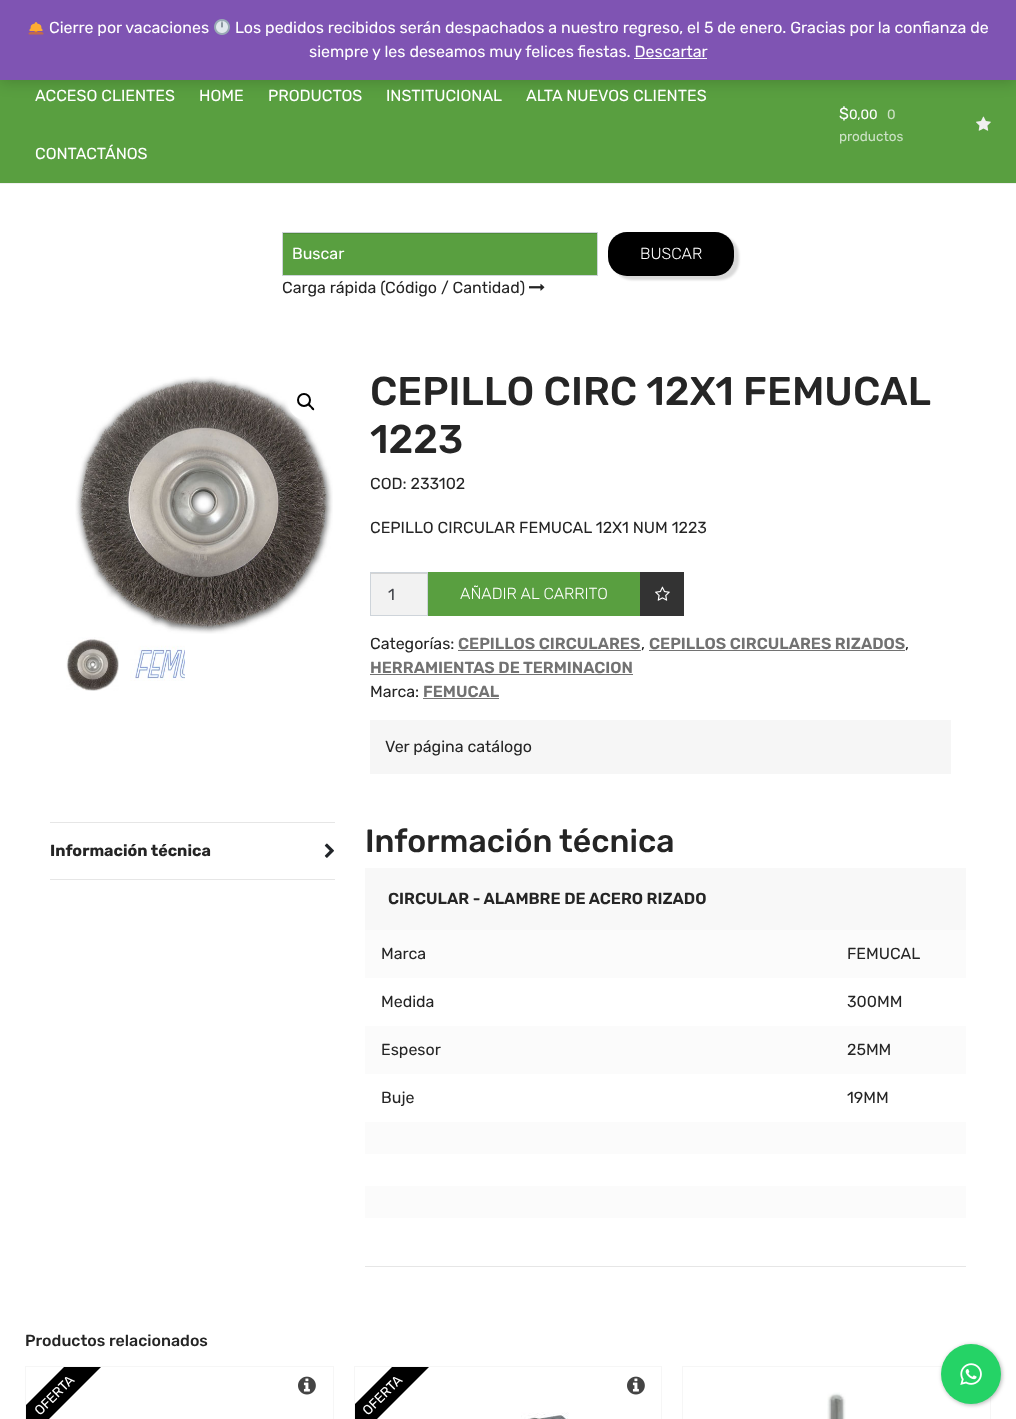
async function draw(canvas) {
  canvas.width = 1016;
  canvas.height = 1419;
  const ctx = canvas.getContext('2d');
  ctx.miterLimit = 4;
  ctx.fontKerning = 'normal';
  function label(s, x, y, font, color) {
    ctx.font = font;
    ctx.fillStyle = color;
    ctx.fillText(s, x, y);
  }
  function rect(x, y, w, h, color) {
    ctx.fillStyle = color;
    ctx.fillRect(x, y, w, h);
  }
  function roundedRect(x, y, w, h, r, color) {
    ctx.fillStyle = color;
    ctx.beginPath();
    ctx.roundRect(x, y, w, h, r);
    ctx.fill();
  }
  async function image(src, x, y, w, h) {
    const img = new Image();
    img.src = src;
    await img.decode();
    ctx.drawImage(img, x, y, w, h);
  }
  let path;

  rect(0, 0, 1016, 1419, '#fff');
  rect(0, 80, 1016, 103, '#599f40');
  ctx.fillStyle = '#00000033';
  ctx.filter = 'blur(8px)';
  ctx.beginPath();
  ctx.rect(0, 1, 1016, 80);
  ctx.fill();
  ctx.filter = 'none';
  rect(0, 0, 1016, 80, '#7f54b3');
  await image('assets/img1.png', 28, 22, 16, 13);
  label('Cierre por vacaciones', 49, 33, '16px Rubik', '#fff');
  await image('assets/img2.png', 214, 19, 16, 16);
  label('Los pedidos recibidos serán despachados a nuestro regreso, el 5 de enero. Gracias por la confianza de', 235, 33, '16px Rubik', '#fff');
  label('siempre y les deseamos muy felices fiestas. Descartar', 309, 57, '16px Rubik', '#fff');
  rect(634, 58, 73, 1, '#fff');
  rect(0, 183, 1016, 1, '#f0f0f0');
  label('ACCESO CLIENTES', 35, 101, '16px Rubik', '#fff');
  label('HOME', 199, 101, '16px Rubik', '#fff');
  label('PRODUCTOS', 268, 101, '16px Rubik', '#fff');
  label('INSTITUCIONAL', 386, 101, '16px Rubik', '#fff');
  label('ALTA NUEVOS CLIENTES', 526, 101, '16px Rubik', '#fff');
  label('CONTACTÁNOS', 35, 159, '16px Rubik', '#fff');
  label('$', 839, 119, '16px Rubik', '#fff');
  label('0,00', 849, 119, '13.5px Rubik', '#fff');
  label('0', 887, 119, '13.5px Rubik', '#cde2c6');
  label('productos', 839, 141, '13.5px Rubik', '#cde2c6');
  await image('assets/img3.png', 976, 116, 15, 15);
  rect(283, 234, 314, 41, '#599f40');
  rect(283, 233, 314, 1, '#4e8b38');
  ctx.strokeStyle = '#ced4da';
  ctx.strokeRect(282.5, 232.5, 315, 43);
  label('Buscar', 292, 259, '16px Rubik', '#fff');
  ctx.fillStyle = '#00000026';
  ctx.filter = 'blur(1px)';
  ctx.beginPath();
  ctx.roundRect(613, 236, 126, 44, 19);
  ctx.fill();
  ctx.filter = 'none';
  roundedRect(608, 232, 126, 44, 19, '#000');
  label('BUSCAR', 640, 259, '300 16px Rubik', '#fff');
  label('Carga rápida (Código / Cantidad)', 282, 293, '16px Rubik', '#252525');
  await image('assets/img4.png', 529, 283, 16, 8);
  await image('assets/img5.png', 75, 376, 258, 258);
  ctx.fillStyle = '#fff';
  ctx.beginPath();
  ctx.arc(306, 402, 18, 0, 2 * Math.PI);
  ctx.fill();
  ctx.beginPath();
  ctx.arc(304, 400, 6, 0, 2 * Math.PI);
  ctx.strokeStyle = '#000';
  ctx.lineWidth = 2;
  ctx.stroke();
  ctx.fillStyle = '#000';
  path = new Path2D('M308.5 404C309.5 403 311 405.5 312 406.5C312.5 407 315 408.5 314 410C313 411 311 408.5 310.5 407.5C310 407 307 405.5 308.5 404Z');
  ctx.fill(path);
  await image('assets/img6.png', 66, 637, 53, 54);
  await image('assets/img7.png', 130, 645, 55, 36);
  label('CEPILLO CIRC 12X1 FEMUCAL', 370, 405, '500 40px Rubik', '#252525');
  label('1223', 370, 453, '500 40px Rubik', '#252525');
  label('COD: 233102', 370, 489, '16px Rubik', '#252525');
  label('CEPILLO CIRCULAR FEMUCAL 12X1 NUM 1223', 370, 533, '16px Rubik', '#252525');
  rect(371, 574, 56, 41, '#f2f2f2');
  rect(371, 573, 56, 1, '#d4d4d4');
  ctx.strokeStyle = '#ced4da';
  ctx.lineWidth = 1;
  ctx.strokeRect(370.5, 572.5, 57, 43);
  label('1', 388, 600, '16px Rubik', '#43454b');
  rect(428, 572, 212, 44, '#599f40');
  label('AÑADIR AL CARRITO', 460, 599, '300 16px Rubik', '#fff');
  rect(640, 572, 44, 44, '#333');
  await image('assets/img8.png', 655, 586, 15, 15);
  label('Categorías:', 370, 649, '16px Rubik', '#252525');
  label('CEPILLOS CIRCULARES', 458, 649, '600 16px Rubik', '#727272');
  rect(458, 650, 183, 1, '#727272');
  label(',', 641, 649, '16px Rubik', '#252525');
  label('CEPILLOS CIRCULARES RIZADOS', 649, 649, '600 16px Rubik', '#727272');
  rect(649, 650, 256, 1, '#727272');
  label(',', 905, 649, '16px Rubik', '#252525');
  label('HERRAMIENTAS DE TERMINACION', 370, 673, '600 16px Rubik', '#727272');
  rect(370, 674, 263, 1, '#727272');
  label('Marca:', 370, 697, '16px Rubik', '#252525');
  label('FEMUCAL', 423, 697, '600 16px Rubik', '#727272');
  rect(423, 698, 76, 1, '#727272');
  rect(370, 720, 581, 54, '#f6f6f6');
  label('Ver página catálogo', 385, 752, '16px Rubik', '#252525');
  rect(50, 822, 285, 1, '#e6e6e6');
  label('Información técnica', 50, 856, 'bold 16px Rubik', '#252525');
  await image('assets/img9.png', 324, 843, 10, 15);
  rect(50, 879, 285, 1, '#e6e6e6');
  label('Información técnica', 365, 852, '500 32px Rubik', '#252525');
  rect(365, 868, 601, 62, '#f8f8f8');
  label('CIRCULAR - ALAMBRE DE ACERO RIZADO', 388, 904, '600 16px Rubik', '#252525');
  rect(365, 930, 601, 48, '#fbfbfb');
  label('Marca', 381, 959, '16px Rubik', '#252525');
  label('FEMUCAL', 847, 959, '16px Rubik', '#252525');
  label('Medida', 381, 1007, '16px Rubik', '#252525');
  label('300MM', 847, 1007, '16px Rubik', '#252525');
  rect(365, 1026, 601, 48, '#fbfbfb');
  label('Espesor', 381, 1055, '16px Rubik', '#252525');
  label('25MM', 847, 1055, '16px Rubik', '#252525');
  label('Buje', 381, 1103, '16px Rubik', '#252525');
  label('19MM', 847, 1103, '16px Rubik', '#252525');
  rect(365, 1122, 601, 32, '#fbfbfb');
  rect(365, 1186, 601, 32, '#fbfbfb');
  rect(365, 1266, 601, 1, '#e6e6e6');
  label('Productos relacionados', 25, 1346, '500 16px Rubik', '#252525');
  ctx.strokeStyle = '#f6f6f6';
  ctx.strokeRect(25.5, 1366.5, 308, 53);
  ctx.save();
  ctx.beginPath();
  ctx.rect(26, 1367, 307, 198);
  ctx.clip();
  ctx.fillStyle = '#000';
  path = new Path2D('M6 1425L84 1347L103 1365L25 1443Z');
  ctx.fill(path);
  ctx.restore();
  ctx.font = '13.5px Rubik';
  ctx.fillStyle = '#fff';
  ctx.save();
  ctx.translate(40, 1416);
  ctx.rotate(-45 * Math.PI / 180);
  ctx.fillText('OFERTA', 0, 0);
  ctx.restore();
  await image('assets/img10.png', 298, 1376, 18, 19);
  ctx.strokeRect(354.5, 1366.5, 307, 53);
  ctx.save();
  ctx.beginPath();
  ctx.rect(355, 1367, 306, 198);
  ctx.clip();
  ctx.fillStyle = '#000';
  path = new Path2D('M334 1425L412 1347L431 1365L353 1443Z');
  ctx.fill(path);
  ctx.restore();
  ctx.save();
  ctx.translate(368, 1416);
  ctx.rotate(-45 * Math.PI / 180);
  ctx.fillText('OFERTA', 0, 0);
  ctx.restore();
  await image('assets/img11.png', 521, 1412, 48, 7);
  await image('assets/img10.png', 627, 1376, 18, 19);
  ctx.strokeRect(682.5, 1366.5, 308, 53);
  await image('assets/img12.png', 827, 1392, 19, 27);
  ctx.fillStyle = '#0000004d';
  ctx.filter = 'blur(2px)';
  ctx.beginPath();
  ctx.roundRect(942, 1345, 60, 60, 30);
  ctx.fill();
  ctx.filter = 'none';
  ctx.fillStyle = '#25d366';
  ctx.beginPath();
  ctx.arc(971, 1374, 30, 0, 2 * Math.PI);
  ctx.fill();
  await image('assets/img13.png', 960, 1363, 22, 22);
}

draw(document.querySelector('canvas'));
